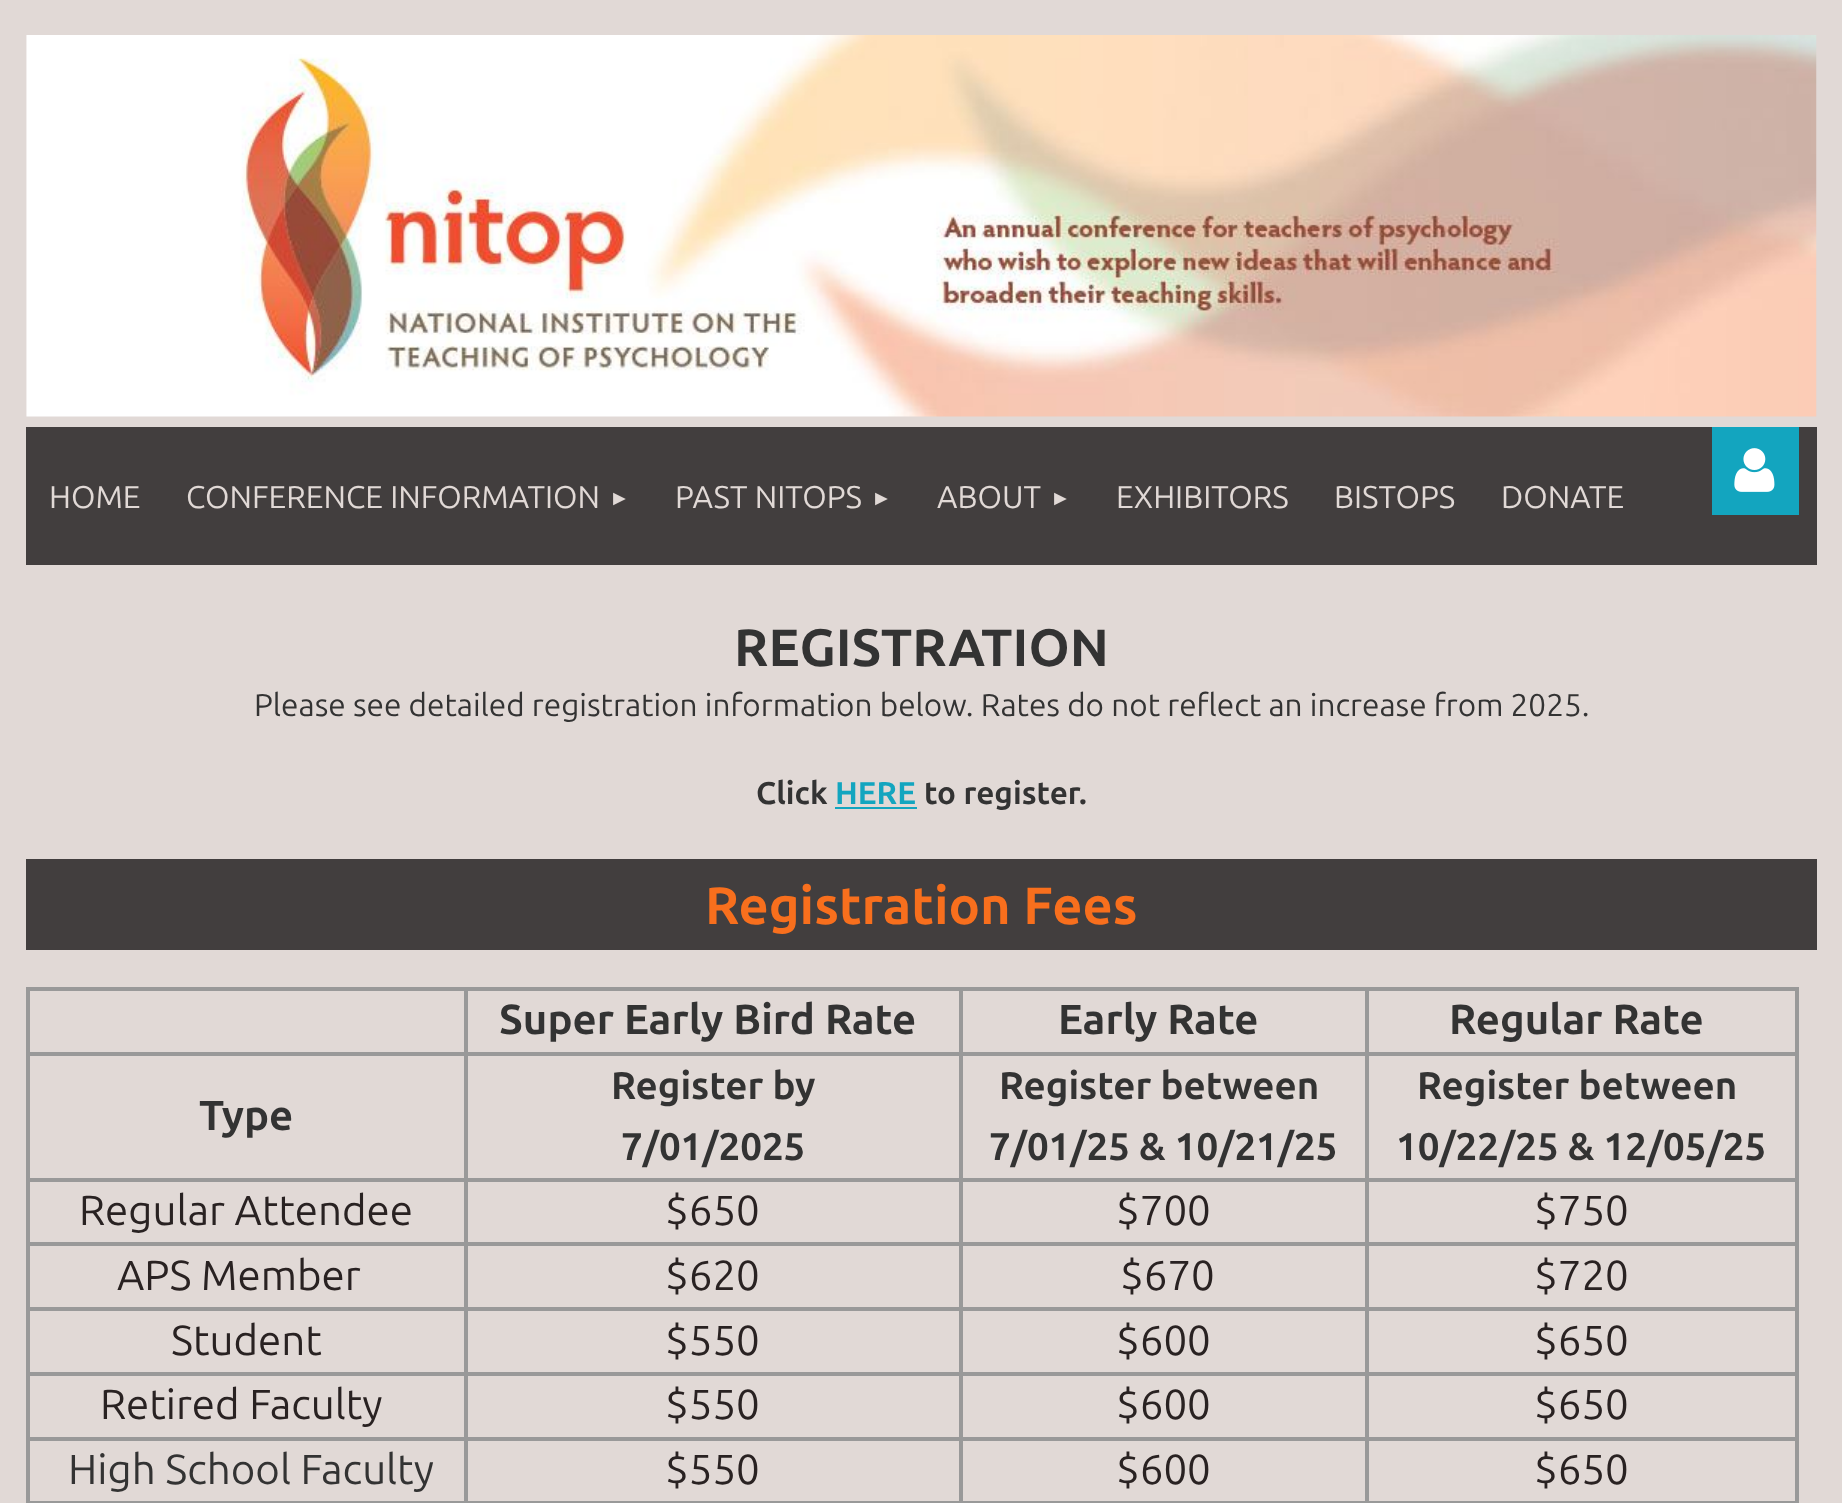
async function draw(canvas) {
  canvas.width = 1842;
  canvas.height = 1503;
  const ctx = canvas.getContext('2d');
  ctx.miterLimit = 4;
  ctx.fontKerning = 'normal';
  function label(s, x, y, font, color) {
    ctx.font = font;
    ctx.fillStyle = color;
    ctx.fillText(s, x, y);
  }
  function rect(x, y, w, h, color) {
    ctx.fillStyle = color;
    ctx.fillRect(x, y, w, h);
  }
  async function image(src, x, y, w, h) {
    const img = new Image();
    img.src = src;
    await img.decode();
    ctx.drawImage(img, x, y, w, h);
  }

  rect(0, 0, 1842, 1503, '#e1d9d6');
  await image('assets/img1.png', 26, 35, 1791, 382);
  rect(26, 427, 1791, 138, '#423e3e');
  label('HOME', 49, 508, '31.5px Ubuntu', '#e1d9d6');
  label('CONFERENCE INFORMATION', 186, 508, '31.5px Ubuntu', '#e1d9d6');
  label('►', 609, 505, '21px Liberation Sans', '#e1d9d6');
  label('PAST NITOPS', 675, 508, '31.5px Ubuntu', '#e1d9d6');
  label('►', 871, 505, '21px Liberation Sans', '#e1d9d6');
  label('ABOUT', 937, 508, '31.5px Ubuntu', '#e1d9d6');
  label('►', 1050, 505, '21px Liberation Sans', '#e1d9d6');
  label('EXHIBITORS', 1116, 508, '31.5px Ubuntu', '#e1d9d6');
  label('BISTOPS', 1334, 508, '31.5px Ubuntu', '#e1d9d6');
  label('DONATE', 1501, 508, '31.5px Ubuntu', '#e1d9d6');
  rect(1712, 427, 87, 88, '#13a5bf');
  await image('assets/img2.png', 1734, 448, 41, 44);
  label('REGISTRATION', 734, 666, 'bold 52.5px Ubuntu', '#333');
  label('Please see detailed registration information below. Rates do not reflect an increase from 2025.', 254, 716, '31.5px Ubuntu', '#333');
  label('Click', 756, 804, 'bold 31.5px Ubuntu', '#333');
  label('HERE', 835, 804, 'bold 31.5px Ubuntu', '#13a5bf');
  rect(835, 807, 82, 2, '#13a5bf');
  label('to register.', 924, 804, 'bold 31.5px Ubuntu', '#333');
  rect(26, 859, 1791, 91, '#423e3e');
  label('Registration Fees', 705, 924, 'bold 52.5px Ubuntu', '#f86f1d');
  ctx.strokeStyle = '#999';
  ctx.lineWidth = 2;
  ctx.strokeRect(27, 988, 1771, 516);
  ctx.strokeRect(29, 990, 436, 63);
  ctx.strokeRect(467, 990, 493, 63);
  label('Super Early Bird Rate', 499, 1034, 'bold 42px Ubuntu', '#333');
  ctx.strokeRect(962, 990, 404, 63);
  label('Early Rate', 1058, 1034, 'bold 42px Ubuntu', '#333');
  ctx.strokeRect(1368, 990, 428, 63);
  label('Regular Rate', 1449, 1034, 'bold 42px Ubuntu', '#333');
  ctx.strokeRect(29, 1055, 436, 124);
  label('Type', 199, 1130, 'bold 42px Ubuntu', '#333');
  ctx.strokeRect(467, 1055, 493, 124);
  label('Register by', 611, 1099, 'bold 38.5px Ubuntu', '#333');
  label('7/01/2025', 621, 1160, 'bold 38.5px Ubuntu', '#333');
  ctx.strokeRect(962, 1055, 404, 124);
  label('Register between', 999, 1099, 'bold 38.5px Ubuntu', '#333');
  label('7/01/25 & 10/21/25', 989, 1160, 'bold 38.5px Ubuntu', '#333');
  ctx.strokeRect(1368, 1055, 428, 124);
  label('Register between', 1417, 1099, 'bold 38.5px Ubuntu', '#333');
  label('10/22/25 & 12/05/25', 1396, 1160, 'bold 38.5px Ubuntu', '#333');
  ctx.strokeRect(29, 1181, 436, 62);
  label('Regular Attendee', 79, 1225, '42px Ubuntu', '#292222');
  ctx.strokeRect(467, 1181, 493, 62);
  label('$650', 665, 1225, '42px Ubuntu', '#292222');
  ctx.strokeRect(962, 1181, 404, 62);
  label('$700', 1116, 1225, '42px Ubuntu', '#292222');
  ctx.strokeRect(1368, 1181, 428, 62);
  label('$750', 1534, 1225, '42px Ubuntu', '#292222');
  ctx.strokeRect(29, 1245, 436, 63);
  label('APS Member', 117, 1290, '42px Ubuntu', '#292222');
  ctx.strokeRect(467, 1245, 493, 63);
  label('$620', 665, 1290, '42px Ubuntu', '#292222');
  ctx.strokeRect(962, 1245, 404, 63);
  label('$670', 1120, 1290, '42px Ubuntu', '#292222');
  ctx.strokeRect(1368, 1245, 428, 63);
  label('$720', 1534, 1290, '42px Ubuntu', '#292222');
  ctx.strokeRect(29, 1310, 436, 63);
  label('Student', 171, 1355, '42px Ubuntu', '#292222');
  ctx.strokeRect(467, 1310, 493, 63);
  label('$550', 665, 1355, '42px Ubuntu', '#292222');
  ctx.strokeRect(962, 1310, 404, 63);
  label('$600', 1116, 1355, '42px Ubuntu', '#292222');
  ctx.strokeRect(1368, 1310, 428, 63);
  label('$650', 1534, 1355, '42px Ubuntu', '#292222');
  ctx.strokeRect(29, 1375, 436, 63);
  label('Retired Faculty', 100, 1419, '42px Ubuntu', '#292222');
  ctx.strokeRect(467, 1375, 493, 63);
  label('$550', 665, 1419, '42px Ubuntu', '#292222');
  ctx.strokeRect(962, 1375, 404, 63);
  label('$600', 1116, 1419, '42px Ubuntu', '#292222');
  ctx.strokeRect(1368, 1375, 428, 63);
  label('$650', 1534, 1419, '42px Ubuntu', '#292222');
  ctx.strokeRect(29, 1440, 436, 62);
  label('High School Faculty', 68, 1484, '42px Ubuntu', '#333');
  ctx.strokeRect(467, 1440, 493, 62);
  label('$550', 665, 1484, '42px Ubuntu', '#292222');
  ctx.strokeRect(962, 1440, 404, 62);
  label('$600', 1116, 1484, '42px Ubuntu', '#292222');
  ctx.strokeRect(1368, 1440, 428, 62);
  label('$650', 1534, 1484, '42px Ubuntu', '#292222');
}

draw(document.querySelector('canvas'));
